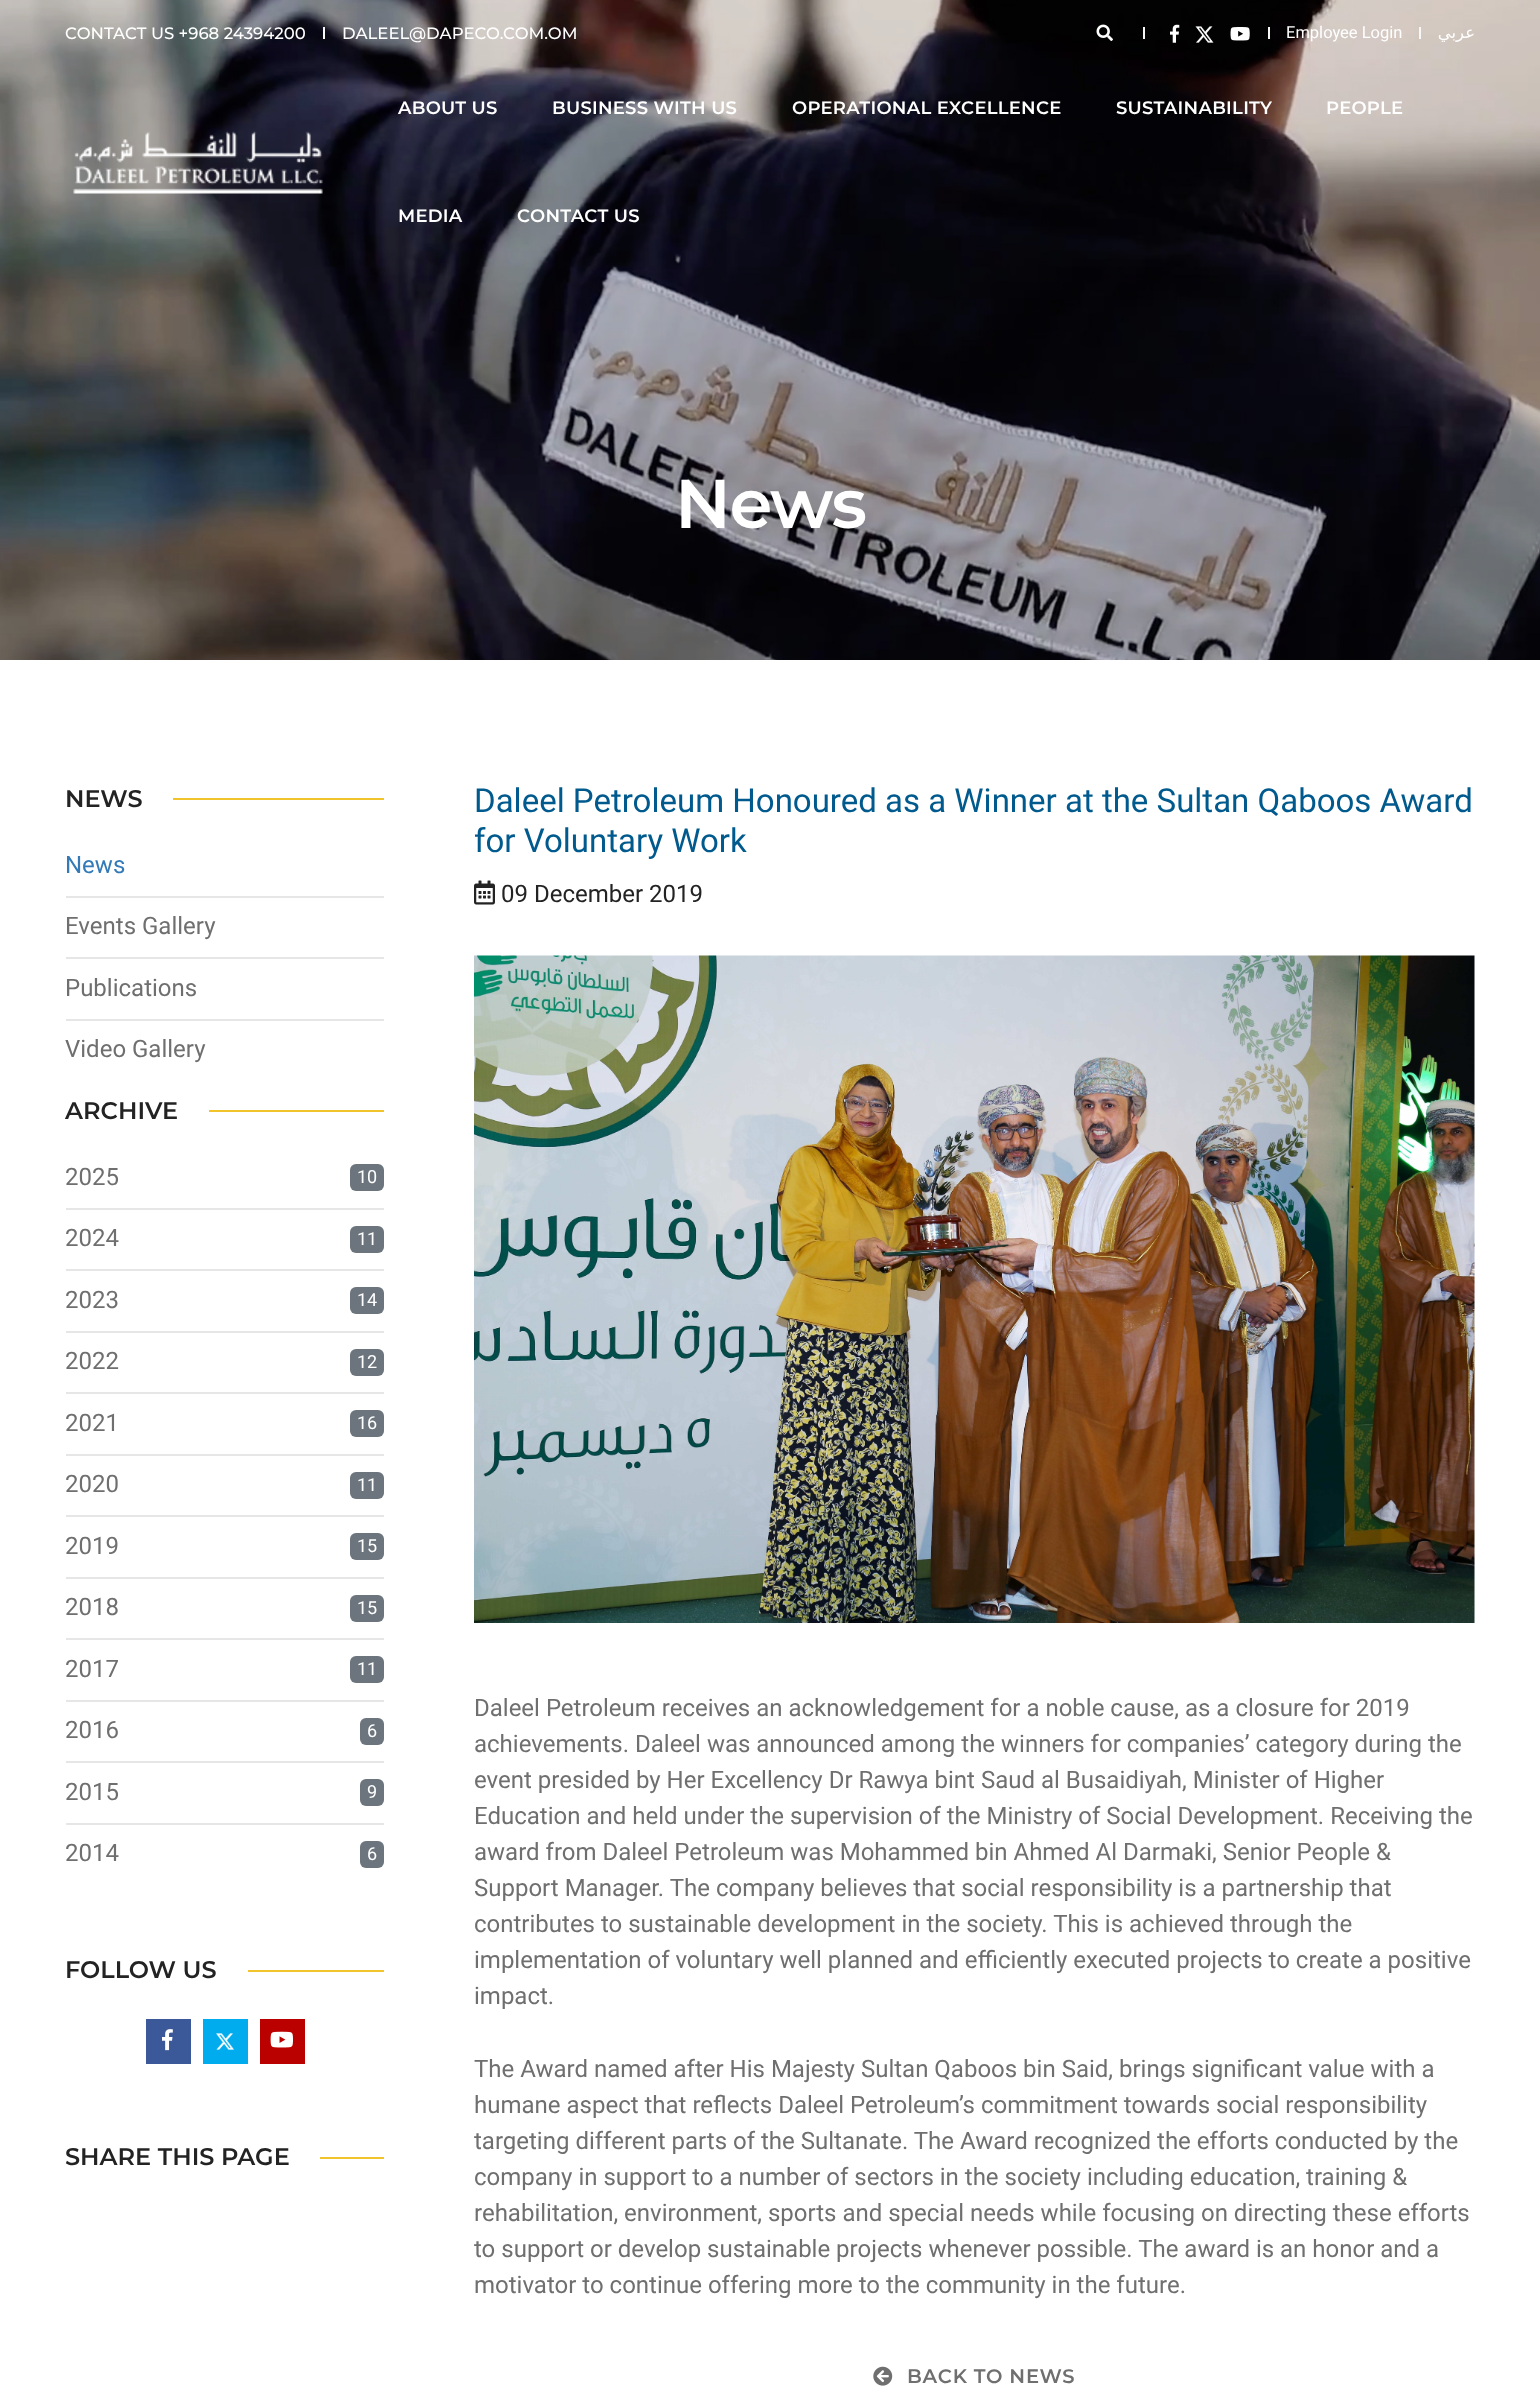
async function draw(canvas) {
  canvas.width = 1540;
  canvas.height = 2408;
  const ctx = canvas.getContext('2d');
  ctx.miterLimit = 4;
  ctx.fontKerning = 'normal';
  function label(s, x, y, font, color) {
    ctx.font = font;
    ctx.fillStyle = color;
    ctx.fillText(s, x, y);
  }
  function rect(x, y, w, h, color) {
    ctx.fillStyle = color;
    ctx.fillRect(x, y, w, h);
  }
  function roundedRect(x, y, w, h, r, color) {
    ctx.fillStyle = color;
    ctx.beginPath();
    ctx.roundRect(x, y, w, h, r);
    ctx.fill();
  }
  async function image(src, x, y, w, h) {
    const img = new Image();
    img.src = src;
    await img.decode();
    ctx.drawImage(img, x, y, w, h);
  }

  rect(0, 0, 1540, 2408, '#fff');
  await image('assets/img6.png', 0, 0, 1540, 660);
  label('CONTACT US +968 24394200', 65, 39, '500 16.5px Montserrat', '#fff');
  rect(323, 27, 2, 12, '#f7f7f7');
  label('DALEEL@DAPECO.COM.OM', 342, 39, '500 16.5px Montserrat', '#fff');
  await image('assets/img1.png', 1096, 24, 17, 17);
  rect(1143, 27, 2, 12, '#f7f7f7');
  await image('assets/img2.png', 1170, 24, 10, 19);
  await image('assets/img3.png', 1195, 26, 19, 17);
  await image('assets/img4.png', 1230, 27, 20, 14);
  rect(1268, 27, 2, 12, '#f7f7f7');
  label('Employee Login', 1286, 38, '16.5px Roboto', '#fff');
  rect(1419, 27, 2, 12, '#f7f7f7');
  ctx.direction = 'rtl';
  label('عربي', 1475, 38, '16.5px DejaVu Sans', '#fff');
  await image('assets/img5.png', 73, 131, 250, 63);
  ctx.letterSpacing = '0.25px';
  ctx.direction = 'ltr';
  label('ABOUT US', 398, 114, '600 18px Montserrat', '#fff');
  label('BUSINESS WITH US', 552, 114, '600 18px Montserrat', '#fff');
  label('OPERATIONAL EXCELLENCE', 792, 114, '600 18px Montserrat', '#fff');
  label('SUSTAINABILITY', 1116, 114, '600 18px Montserrat', '#fff');
  label('PEOPLE', 1326, 114, '600 18px Montserrat', '#fff');
  label('MEDIA', 398, 222, '600 18px Montserrat', '#fff');
  label('CONTACT US', 517, 222, '600 18px Montserrat', '#fff');
  ctx.letterSpacing = '-1.5px';
  label('News', 675, 528, '600 69px Montserrat', '#fff');
  ctx.letterSpacing = '0px';
  label('NEWS', 65, 807, '600 24px Montserrat', '#232323');
  rect(173, 798, 211, 2, '#f1c42b');
  rect(66, 896, 318, 2, '#e6e6e6');
  label('News', 65, 873, '24px Roboto', '#337ab7');
  rect(66, 957, 318, 2, '#e6e6e6');
  label('Events Gallery', 65, 934, '24px Roboto', '#6f6f6f');
  rect(66, 1019, 318, 2, '#e6e6e6');
  label('Publications', 65, 996, '24px Roboto', '#6f6f6f');
  label('Video Gallery', 65, 1057, '24px Roboto', '#6f6f6f');
  label('ARCHIVE', 65, 1119, '600 24px Montserrat', '#232323');
  rect(209, 1110, 175, 2, '#f1c42b');
  rect(66, 1208, 318, 2, '#e6e6e6');
  label('2025', 65, 1185, '24px Roboto', '#6f6f6f');
  roundedRect(350, 1164, 34, 27, 6, '#6c757d');
  label('10', 357, 1183, '18px Roboto', '#fff');
  rect(66, 1269, 318, 2, '#e6e6e6');
  label('2024', 65, 1246, '24px Roboto', '#6f6f6f');
  roundedRect(350, 1226, 34, 27, 6, '#6c757d');
  label('11', 357, 1245, '18px Roboto', '#fff');
  rect(66, 1331, 318, 2, '#e6e6e6');
  label('2023', 65, 1308, '24px Roboto', '#6f6f6f');
  roundedRect(350, 1287, 34, 27, 6, '#6c757d');
  label('14', 357, 1306, '18px Roboto', '#fff');
  rect(66, 1392, 318, 2, '#e6e6e6');
  label('2022', 65, 1369, '24px Roboto', '#6f6f6f');
  roundedRect(350, 1349, 34, 27, 6, '#6c757d');
  label('12', 357, 1368, '18px Roboto', '#fff');
  rect(66, 1454, 318, 2, '#e6e6e6');
  label('2021', 65, 1431, '24px Roboto', '#6f6f6f');
  roundedRect(350, 1410, 34, 27, 6, '#6c757d');
  label('16', 357, 1429, '18px Roboto', '#fff');
  rect(66, 1515, 318, 2, '#e6e6e6');
  label('2020', 65, 1492, '24px Roboto', '#6f6f6f');
  roundedRect(350, 1472, 34, 27, 6, '#6c757d');
  label('11', 357, 1491, '18px Roboto', '#fff');
  rect(66, 1577, 318, 2, '#e6e6e6');
  label('2019', 65, 1554, '24px Roboto', '#6f6f6f');
  roundedRect(350, 1533, 34, 27, 6, '#6c757d');
  label('15', 357, 1552, '18px Roboto', '#fff');
  rect(66, 1638, 318, 2, '#e6e6e6');
  label('2018', 65, 1615, '24px Roboto', '#6f6f6f');
  roundedRect(350, 1595, 34, 27, 6, '#6c757d');
  label('15', 357, 1614, '18px Roboto', '#fff');
  rect(66, 1700, 318, 2, '#e6e6e6');
  label('2017', 65, 1677, '24px Roboto', '#6f6f6f');
  roundedRect(350, 1656, 34, 27, 6, '#6c757d');
  label('11', 357, 1675, '18px Roboto', '#fff');
  rect(66, 1761, 318, 2, '#e6e6e6');
  label('2016', 65, 1738, '24px Roboto', '#6f6f6f');
  roundedRect(360, 1718, 24, 27, 6, '#6c757d');
  label('6', 367, 1737, '18px Roboto', '#fff');
  rect(66, 1823, 318, 2, '#e6e6e6');
  label('2015', 65, 1800, '24px Roboto', '#6f6f6f');
  roundedRect(360, 1779, 24, 27, 6, '#6c757d');
  label('9', 367, 1798, '18px Roboto', '#fff');
  label('2014', 65, 1861, '24px Roboto', '#6f6f6f');
  roundedRect(360, 1841, 24, 27, 6, '#6c757d');
  label('6', 367, 1860, '18px Roboto', '#fff');
  label('FOLLOW US', 65, 1978, '600 24px Montserrat', '#232323');
  rect(248, 1970, 136, 2, '#f1c42b');
  rect(146, 2019, 45, 45, '#3b5998');
  await image('assets/img7.png', 162, 2029, 11, 22);
  rect(203, 2019, 45, 45, '#00aced');
  await image('assets/img8.png', 215, 2033, 19, 17);
  rect(260, 2019, 45, 45, '#b00');
  await image('assets/img9.png', 270, 2031, 23, 17);
  label('SHARE THIS PAGE', 65, 2165, '600 24px Montserrat', '#232323');
  rect(320, 2157, 64, 2, '#f1c42b');
  label('Daleel Petroleum Honoured as a Winner at the Sultan Qaboos Award', 474, 812, '33px Roboto', '#015a8d');
  label('for Voluntary Work', 474, 852, '33px Roboto', '#015a8d');
  await image('assets/img10.png', 474, 880, 21, 25);
  label('09 December 2019', 501, 902, '24px Roboto', '#232323');
  await image('assets/img11.png', 474, 955, 1001, 668);
  label('Daleel Petroleum receives an acknowledgement for a noble cause, as a closure for 2019', 474, 1716, '24px Roboto', '#6f6f6f');
  label('achievements. Daleel was announced among the winners for companies’ category during the', 474, 1752, '24px Roboto', '#6f6f6f');
  label('event presided by Her Excellency Dr Rawya bint Saud al Busaidiyah, Minister of Higher', 474, 1788, '24px Roboto', '#6f6f6f');
  label('Education and held under the supervision of the Ministry of Social Development. Receiving the', 474, 1824, '24px Roboto', '#6f6f6f');
  label('award from Daleel Petroleum was Mohammed bin Ahmed Al Darmaki, Senior People &', 474, 1860, '24px Roboto', '#6f6f6f');
  label('Support Manager. The company believes that social responsibility is a partnership that', 474, 1896, '24px Roboto', '#6f6f6f');
  label('contributes to sustainable development in the society. This is achieved through the', 474, 1932, '24px Roboto', '#6f6f6f');
  label('implementation of voluntary well planned and efficiently executed projects to create a positive', 474, 1968, '24px Roboto', '#6f6f6f');
  label('impact.', 474, 2004, '24px Roboto', '#6f6f6f');
  label('The Award named after His Majesty Sultan Qaboos bin Said, brings significant value with a', 474, 2077, '24px Roboto', '#6f6f6f');
  label('humane aspect that reflects Daleel Petroleum’s commitment towards social responsibility', 474, 2113, '24px Roboto', '#6f6f6f');
  label('targeting different parts of the Sultanate. The Award recognized the efforts conducted by the', 474, 2149, '24px Roboto', '#6f6f6f');
  label('company in support to a number of sectors in the society including education, training &', 474, 2185, '24px Roboto', '#6f6f6f');
  label('rehabilitation, environment, sports and special needs while focusing on directing these efforts', 474, 2221, '24px Roboto', '#6f6f6f');
  label('to support or develop sustainable projects whenever possible. The award is an honor and a', 474, 2257, '24px Roboto', '#6f6f6f');
  label('motivator to continue offering more to the community in the future.', 474, 2293, '24px Roboto', '#6f6f6f');
  await image('assets/img12.png', 873, 2366, 20, 20);
  ctx.letterSpacing = '0.75px';
  label('BACK TO NEWS', 907, 2383, '600 19.5px Montserrat', '#6f6f6f');
}

draw(document.querySelector('canvas'));
